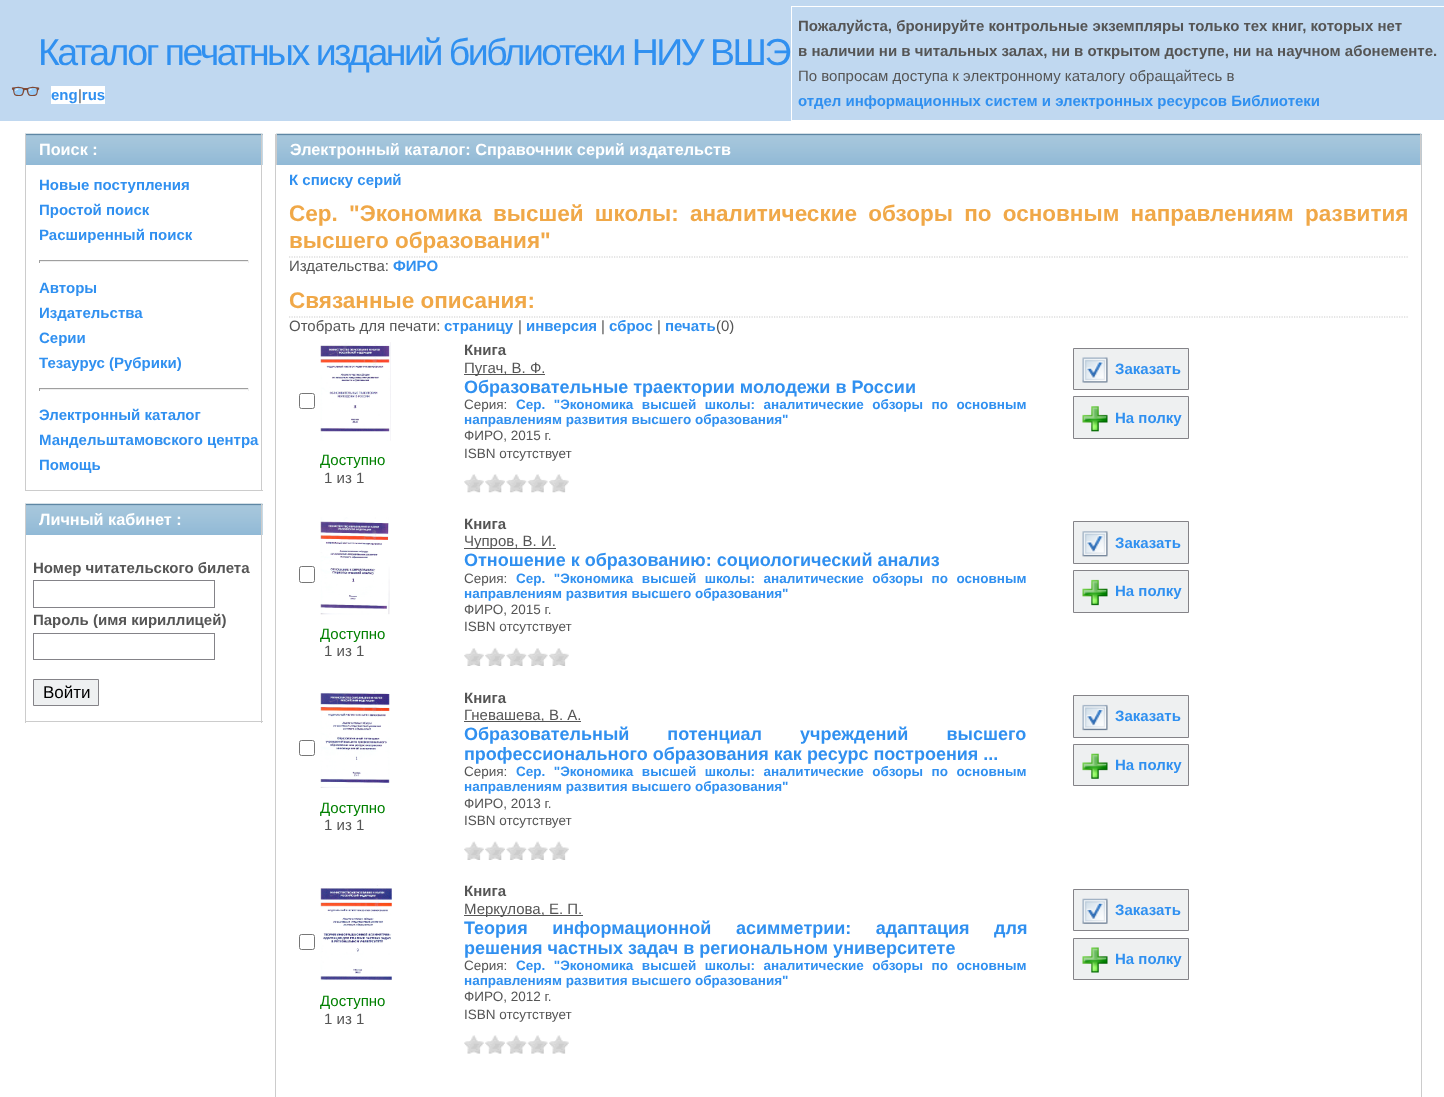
async function draw(canvas) {
  canvas.width = 1444;
  canvas.height = 1097;
  const ctx = canvas.getContext('2d');
  ctx.miterLimit = 4;
  ctx.fontKerning = 'normal';
  function label(s, x, y, font, color) {
    ctx.font = font;
    ctx.fillStyle = color;
    ctx.fillText(s, x, y);
  }
  function rect(x, y, w, h, color) {
    ctx.fillStyle = color;
    ctx.fillRect(x, y, w, h);
  }
  async function image(src, x, y, w, h) {
    const img = new Image();
    img.src = src;
    await img.decode();
    ctx.drawImage(img, x, y, w, h);
  }
  let path;

  rect(0, 0, 1444, 1097, '#fff');
  rect(0, 0, 1444, 121, '#c0d8f0');
  ctx.letterSpacing = '-2.5px';
  label('Каталог печатных изданий библиотеки НИУ ВШЭ', 38, 65, '37.5px Liberation Sans', '#3090f0');
  ctx.letterSpacing = '0px';
  label('👓', 10, 100, 'bold 25px Noto Color Emoji', '#3090f0');
  rect(51, 86, 54, 18, '#fff');
  label('eng rus', 51, 100, 'bold 15px Liberation Sans', '#3090f0');
  label('|', 78, 100, '15px Liberation Sans', '#555');
  ctx.strokeStyle = '#fff';
  ctx.strokeRect(791.5, 6.5, 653, 114);
  label('Пожалуйста, бронируйте контрольные экземпляры только тех книг, которых нет', 798, 31, 'bold 15px Liberation Sans', '#555');
  label('в наличии ни в читальных залах, ни в открытом доступе, ни на научном абонементе.', 798, 56, 'bold 15px Liberation Sans', '#555');
  label('По вопросам доступа к электронному каталогу обращайтесь в', 798, 81, '15px Liberation Sans', '#555');
  label('отдел информационных систем и электронных ресурсов Библиотеки', 798, 106, 'bold 15px Liberation Sans', '#3090f0');
  rect(262, 134, 1, 31, '#eef0f1');
  await image('assets/img1.png', 25, 133, 238, 32);
  rect(261, 134, 1, 357, '#ccc');
  rect(25, 134, 1, 31, '#ccc');
  label('Поиск :', 39, 155, 'bold 16.25px Liberation Sans', '#fff');
  rect(25, 490, 238, 1, '#ccc');
  rect(25, 165, 1, 326, '#ccc');
  label('Новые поступления', 39, 190, 'bold 15px Liberation Sans', '#3090f0');
  label('Простой поиск', 39, 215, 'bold 15px Liberation Sans', '#3090f0');
  label('Расширенный поиск', 39, 240, 'bold 15px Liberation Sans', '#3090f0');
  rect(39, 260, 210, 1, '#9f9f9f');
  rect(248, 260, 1, 3, '#eee');
  rect(39, 261, 210, 1, '#eee');
  rect(39, 260, 1, 3, '#9f9f9f');
  label('Авторы', 39, 293, 'bold 15px Liberation Sans', '#3090f0');
  label('Издательства', 39, 318, 'bold 15px Liberation Sans', '#3090f0');
  label('Серии', 39, 343, 'bold 15px Liberation Sans', '#3090f0');
  label('Тезаурус (Рубрики)', 39, 368, 'bold 15px Liberation Sans', '#3090f0');
  rect(39, 388, 210, 1, '#9f9f9f');
  rect(248, 388, 1, 3, '#eee');
  rect(39, 389, 210, 1, '#eee');
  rect(39, 388, 1, 3, '#9f9f9f');
  label('Электронный каталог', 39, 420, 'bold 15px Liberation Sans', '#3090f0');
  label('Мандельштамовского центра', 39, 445, 'bold 15px Liberation Sans', '#3090f0');
  label('Помощь', 39, 470, 'bold 15px Liberation Sans', '#3090f0');
  rect(262, 504, 1, 31, '#eef0f1');
  await image('assets/img1.png', 25, 503, 238, 32);
  rect(261, 504, 1, 219, '#ccc');
  rect(25, 504, 1, 31, '#ccc');
  label('Личный кабинет :', 39, 525, 'bold 16.25px Liberation Sans', '#fff');
  rect(25, 721, 238, 1, '#ccc');
  rect(25, 535, 1, 188, '#ccc');
  label('Номер читательского билета', 33, 573, 'bold 15px Liberation Sans', '#555');
  ctx.strokeStyle = '#848388';
  ctx.strokeRect(33.5, 580.5, 181, 27);
  label('Пароль (имя кириллицей)', 33, 625, 'bold 15px Liberation Sans', '#555');
  ctx.strokeRect(33.5, 633.5, 181, 26);
  ctx.fillStyle = '#eef0f1';
  ctx.beginPath();
  ctx.rect(33.5, 679.5, 65, 26);
  ctx.fill();
  ctx.stroke();
  label('Войти', 43, 698, '17px Liberation Sans', '#000');
  rect(1421, 134, 1, 963, '#ccc');
  rect(275, 134, 1, 963, '#ccc');
  await image('assets/img2.png', 276, 133, 1146, 32);
  rect(1420, 134, 1, 31, '#ccc');
  rect(276, 134, 1, 31, '#ccc');
  label('Электронный каталог: Справочник серий издательств', 290, 155, 'bold 16.25px Liberation Sans', '#fff');
  label('К списку серий', 289, 185, 'bold 15px Liberation Sans', '#3090f0');
  path = new Path2D('M289 257H1409');
  ctx.strokeStyle = '#ccc';
  ctx.lineWidth = 1.2;
  ctx.setLineDash([1.25, 1.25]);
  ctx.stroke(path);
  ctx.wordSpacing = '5px';
  label('Сер. "Экономика высшей школы: аналитические обзоры по основным направлениям развития', 289, 221, 'bold 22.5px Liberation Sans', '#f0a848');
  ctx.wordSpacing = '0px';
  label('высшего образования"', 289, 248, 'bold 22.5px Liberation Sans', '#f0a848');
  label('Издательства:', 289, 271, '15px Liberation Sans', '#555');
  label('ФИРО', 393, 271, 'bold 15px Liberation Sans', '#3090f0');
  path = new Path2D('M289 317H1409');
  ctx.stroke(path);
  label('Связанные описания:', 289, 308, 'bold 22.5px Liberation Sans', '#f0a848');
  label('Отобрать для печати:', 289, 331, '15px Liberation Sans', '#555');
  label('страницу', 444, 331, 'bold 15px Liberation Sans', '#3090f0');
  label('|', 518, 331, '15px Liberation Sans', '#555');
  label('инверсия', 526, 331, 'bold 15px Liberation Sans', '#3090f0');
  label('|', 601, 331, '15px Liberation Sans', '#555');
  label('сброс', 609, 331, 'bold 15px Liberation Sans', '#3090f0');
  label('|', 657, 331, '15px Liberation Sans', '#555');
  label('печать', 665, 331, 'bold 15px Liberation Sans', '#3090f0');
  label('(0)', 716, 331, '15px Liberation Sans', '#555');
  label('Книга', 464, 355, 'bold 15px Liberation Sans', '#555');
  rect(464, 374, 81, 1, '#555');
  label('Пугач, В. Ф.', 464, 373, '15px Liberation Sans', '#555');
  label('Образовательные траектории молодежи в России', 464, 393, 'bold 18px Liberation Sans', '#3090f0');
  label('Серия:', 464, 409, '13.5px Liberation Sans', '#555');
  ctx.wordSpacing = '4.75px';
  label('Сер. "Экономика высшей школы: аналитические обзоры по основным', 516, 409, 'bold 13.5px Liberation Sans', '#3090f0');
  ctx.wordSpacing = '0px';
  label('направлениям развития высшего образования"', 464, 424, 'bold 13.5px Liberation Sans', '#3090f0');
  label('ФИРО, 2015 г.', 464, 440, '13.5px Liberation Sans', '#555');
  label('ISBN отсутствует', 464, 458, '13.5px Liberation Sans', '#555');
  await image('assets/img3.png', 464, 474, 20, 19);
  await image('assets/img4.png', 485, 474, 20, 19);
  await image('assets/img5.png', 506, 474, 21, 19);
  await image('assets/img6.png', 527, 474, 21, 19);
  await image('assets/img7.png', 549, 474, 20, 19);
  ctx.fillStyle = '#eef0f1';
  ctx.beginPath();
  ctx.rect(1073.5, 348.5, 115, 41);
  ctx.fill();
  ctx.strokeStyle = '#848388';
  ctx.lineWidth = 1;
  ctx.setLineDash([]);
  ctx.stroke();
  await image('assets/img8.png', 1082, 357, 26, 26);
  label('Заказать', 1115, 374, 'bold 15px Liberation Sans', '#3090f0');
  ctx.fillStyle = '#eef0f1';
  ctx.beginPath();
  ctx.rect(1073.5, 396.5, 115, 42);
  ctx.fill();
  ctx.stroke();
  await image('assets/img9.png', 1082, 406, 26, 26);
  label('На полку', 1115, 423, 'bold 15px Liberation Sans', '#3090f0');
  ctx.beginPath();
  ctx.roundRect(299.5, 393.5, 15, 15, 2);
  ctx.strokeStyle = '#767676';
  ctx.stroke();
  await image('assets/img10.png', 320, 342, 71, 99);
  label('Доступно', 320, 465, '15px Liberation Sans', '#008000');
  label('1 из 1', 324, 483, '15px Liberation Sans', '#555');
  label('Книга', 464, 529, 'bold 15px Liberation Sans', '#555');
  rect(464, 548, 92, 1, '#555');
  label('Чупров, В. И.', 464, 546, '15px Liberation Sans', '#555');
  label('Отношение к образованию: социологический анализ', 464, 566, 'bold 18px Liberation Sans', '#3090f0');
  label('Серия:', 464, 583, '13.5px Liberation Sans', '#555');
  ctx.wordSpacing = '4.75px';
  label('Сер. "Экономика высшей школы: аналитические обзоры по основным', 516, 583, 'bold 13.5px Liberation Sans', '#3090f0');
  ctx.wordSpacing = '0px';
  label('направлениям развития высшего образования"', 464, 598, 'bold 13.5px Liberation Sans', '#3090f0');
  label('ФИРО, 2015 г.', 464, 614, '13.5px Liberation Sans', '#555');
  label('ISBN отсутствует', 464, 631, '13.5px Liberation Sans', '#555');
  await image('assets/img11.png', 464, 648, 20, 18);
  await image('assets/img12.png', 485, 647, 20, 19);
  await image('assets/img13.png', 506, 647, 21, 19);
  await image('assets/img14.png', 527, 648, 21, 18);
  await image('assets/img15.png', 549, 648, 20, 18);
  ctx.fillStyle = '#eef0f1';
  ctx.beginPath();
  ctx.rect(1073.5, 521.5, 115, 42);
  ctx.fill();
  ctx.strokeStyle = '#848388';
  ctx.stroke();
  await image('assets/img16.png', 1082, 531, 26, 26);
  label('Заказать', 1115, 548, 'bold 15px Liberation Sans', '#3090f0');
  ctx.fillStyle = '#eef0f1';
  ctx.beginPath();
  ctx.rect(1073.5, 570.5, 115, 42);
  ctx.fill();
  ctx.stroke();
  await image('assets/img17.png', 1082, 579, 26, 27);
  label('На полку', 1115, 596, 'bold 15px Liberation Sans', '#3090f0');
  ctx.beginPath();
  ctx.roundRect(299.5, 566.5, 15, 16, 2);
  ctx.strokeStyle = '#767676';
  ctx.stroke();
  await image('assets/img18.png', 320, 517, 70, 98);
  label('Доступно', 320, 639, '15px Liberation Sans', '#008000');
  label('1 из 1', 324, 656, '15px Liberation Sans', '#555');
  label('Книга', 464, 703, 'bold 15px Liberation Sans', '#555');
  rect(464, 721, 117, 1, '#555');
  label('Гневашева, В. А.', 464, 720, '15px Liberation Sans', '#555');
  ctx.wordSpacing = '33px';
  label('Образовательный потенциал учреждений высшего', 464, 740, 'bold 18px Liberation Sans', '#3090f0');
  ctx.wordSpacing = '0px';
  label('профессионального образования как ресурс построения ...', 464, 760, 'bold 18px Liberation Sans', '#3090f0');
  label('Серия:', 464, 776, '13.5px Liberation Sans', '#555');
  ctx.wordSpacing = '4.75px';
  label('Сер. "Экономика высшей школы: аналитические обзоры по основным', 516, 776, 'bold 13.5px Liberation Sans', '#3090f0');
  ctx.wordSpacing = '0px';
  label('направлениям развития высшего образования"', 464, 791, 'bold 13.5px Liberation Sans', '#3090f0');
  label('ФИРО, 2013 г.', 464, 808, '13.5px Liberation Sans', '#555');
  label('ISBN отсутствует', 464, 825, '13.5px Liberation Sans', '#555');
  await image('assets/img19.png', 464, 841, 20, 19);
  await image('assets/img20.png', 485, 841, 20, 19);
  await image('assets/img21.png', 506, 841, 21, 19);
  await image('assets/img22.png', 527, 841, 21, 19);
  await image('assets/img23.png', 549, 841, 20, 19);
  ctx.fillStyle = '#eef0f1';
  ctx.beginPath();
  ctx.rect(1073.5, 695.5, 115, 42);
  ctx.fill();
  ctx.strokeStyle = '#848388';
  ctx.stroke();
  await image('assets/img24.png', 1082, 704, 26, 27);
  label('Заказать', 1115, 721, 'bold 15px Liberation Sans', '#3090f0');
  ctx.fillStyle = '#eef0f1';
  ctx.beginPath();
  ctx.rect(1073.5, 744.5, 115, 41);
  ctx.fill();
  ctx.stroke();
  await image('assets/img25.png', 1082, 753, 26, 26);
  label('На полку', 1115, 770, 'bold 15px Liberation Sans', '#3090f0');
  ctx.beginPath();
  ctx.roundRect(299.5, 740.5, 15, 15, 2);
  ctx.strokeStyle = '#767676';
  ctx.stroke();
  await image('assets/img26.png', 320, 691, 70, 97);
  label('Доступно', 320, 813, '15px Liberation Sans', '#008000');
  label('1 из 1', 324, 830, '15px Liberation Sans', '#555');
  label('Книга', 464, 896, 'bold 15px Liberation Sans', '#555');
  rect(464, 915, 119, 1, '#555');
  label('Меркулова, Е. П.', 464, 914, '15px Liberation Sans', '#555');
  ctx.wordSpacing = '19.5px';
  label('Теория информационной асимметрии: адаптация для', 464, 934, 'bold 18px Liberation Sans', '#3090f0');
  ctx.wordSpacing = '0px';
  label('решения частных задач в региональном университете', 464, 954, 'bold 18px Liberation Sans', '#3090f0');
  label('Серия:', 464, 970, '13.5px Liberation Sans', '#555');
  ctx.wordSpacing = '4.75px';
  label('Сер. "Экономика высшей школы: аналитические обзоры по основным', 516, 970, 'bold 13.5px Liberation Sans', '#3090f0');
  ctx.wordSpacing = '0px';
  label('направлениям развития высшего образования"', 464, 985, 'bold 13.5px Liberation Sans', '#3090f0');
  label('ФИРО, 2012 г.', 464, 1001, '13.5px Liberation Sans', '#555');
  label('ISBN отсутствует', 464, 1019, '13.5px Liberation Sans', '#555');
  await image('assets/img27.png', 464, 1035, 20, 19);
  await image('assets/img28.png', 485, 1035, 20, 19);
  await image('assets/img29.png', 506, 1035, 21, 19);
  await image('assets/img30.png', 527, 1035, 21, 19);
  await image('assets/img31.png', 549, 1035, 20, 19);
  ctx.fillStyle = '#eef0f1';
  ctx.beginPath();
  ctx.rect(1073.5, 889.5, 115, 41);
  ctx.fill();
  ctx.strokeStyle = '#848388';
  ctx.stroke();
  await image('assets/img32.png', 1082, 898, 26, 26);
  label('Заказать', 1115, 915, 'bold 15px Liberation Sans', '#3090f0');
  ctx.fillStyle = '#eef0f1';
  ctx.beginPath();
  ctx.rect(1073.5, 938.5, 115, 41);
  ctx.fill();
  ctx.stroke();
  await image('assets/img33.png', 1082, 947, 26, 26);
  label('На полку', 1115, 964, 'bold 15px Liberation Sans', '#3090f0');
  ctx.beginPath();
  ctx.roundRect(299.5, 934.5, 15, 15, 2);
  ctx.strokeStyle = '#767676';
  ctx.stroke();
  await image('assets/img34.png', 320, 885, 72, 96);
  label('Доступно', 320, 1006, '15px Liberation Sans', '#008000');
  label('1 из 1', 324, 1024, '15px Liberation Sans', '#555');
}

draw(document.querySelector('canvas'));
